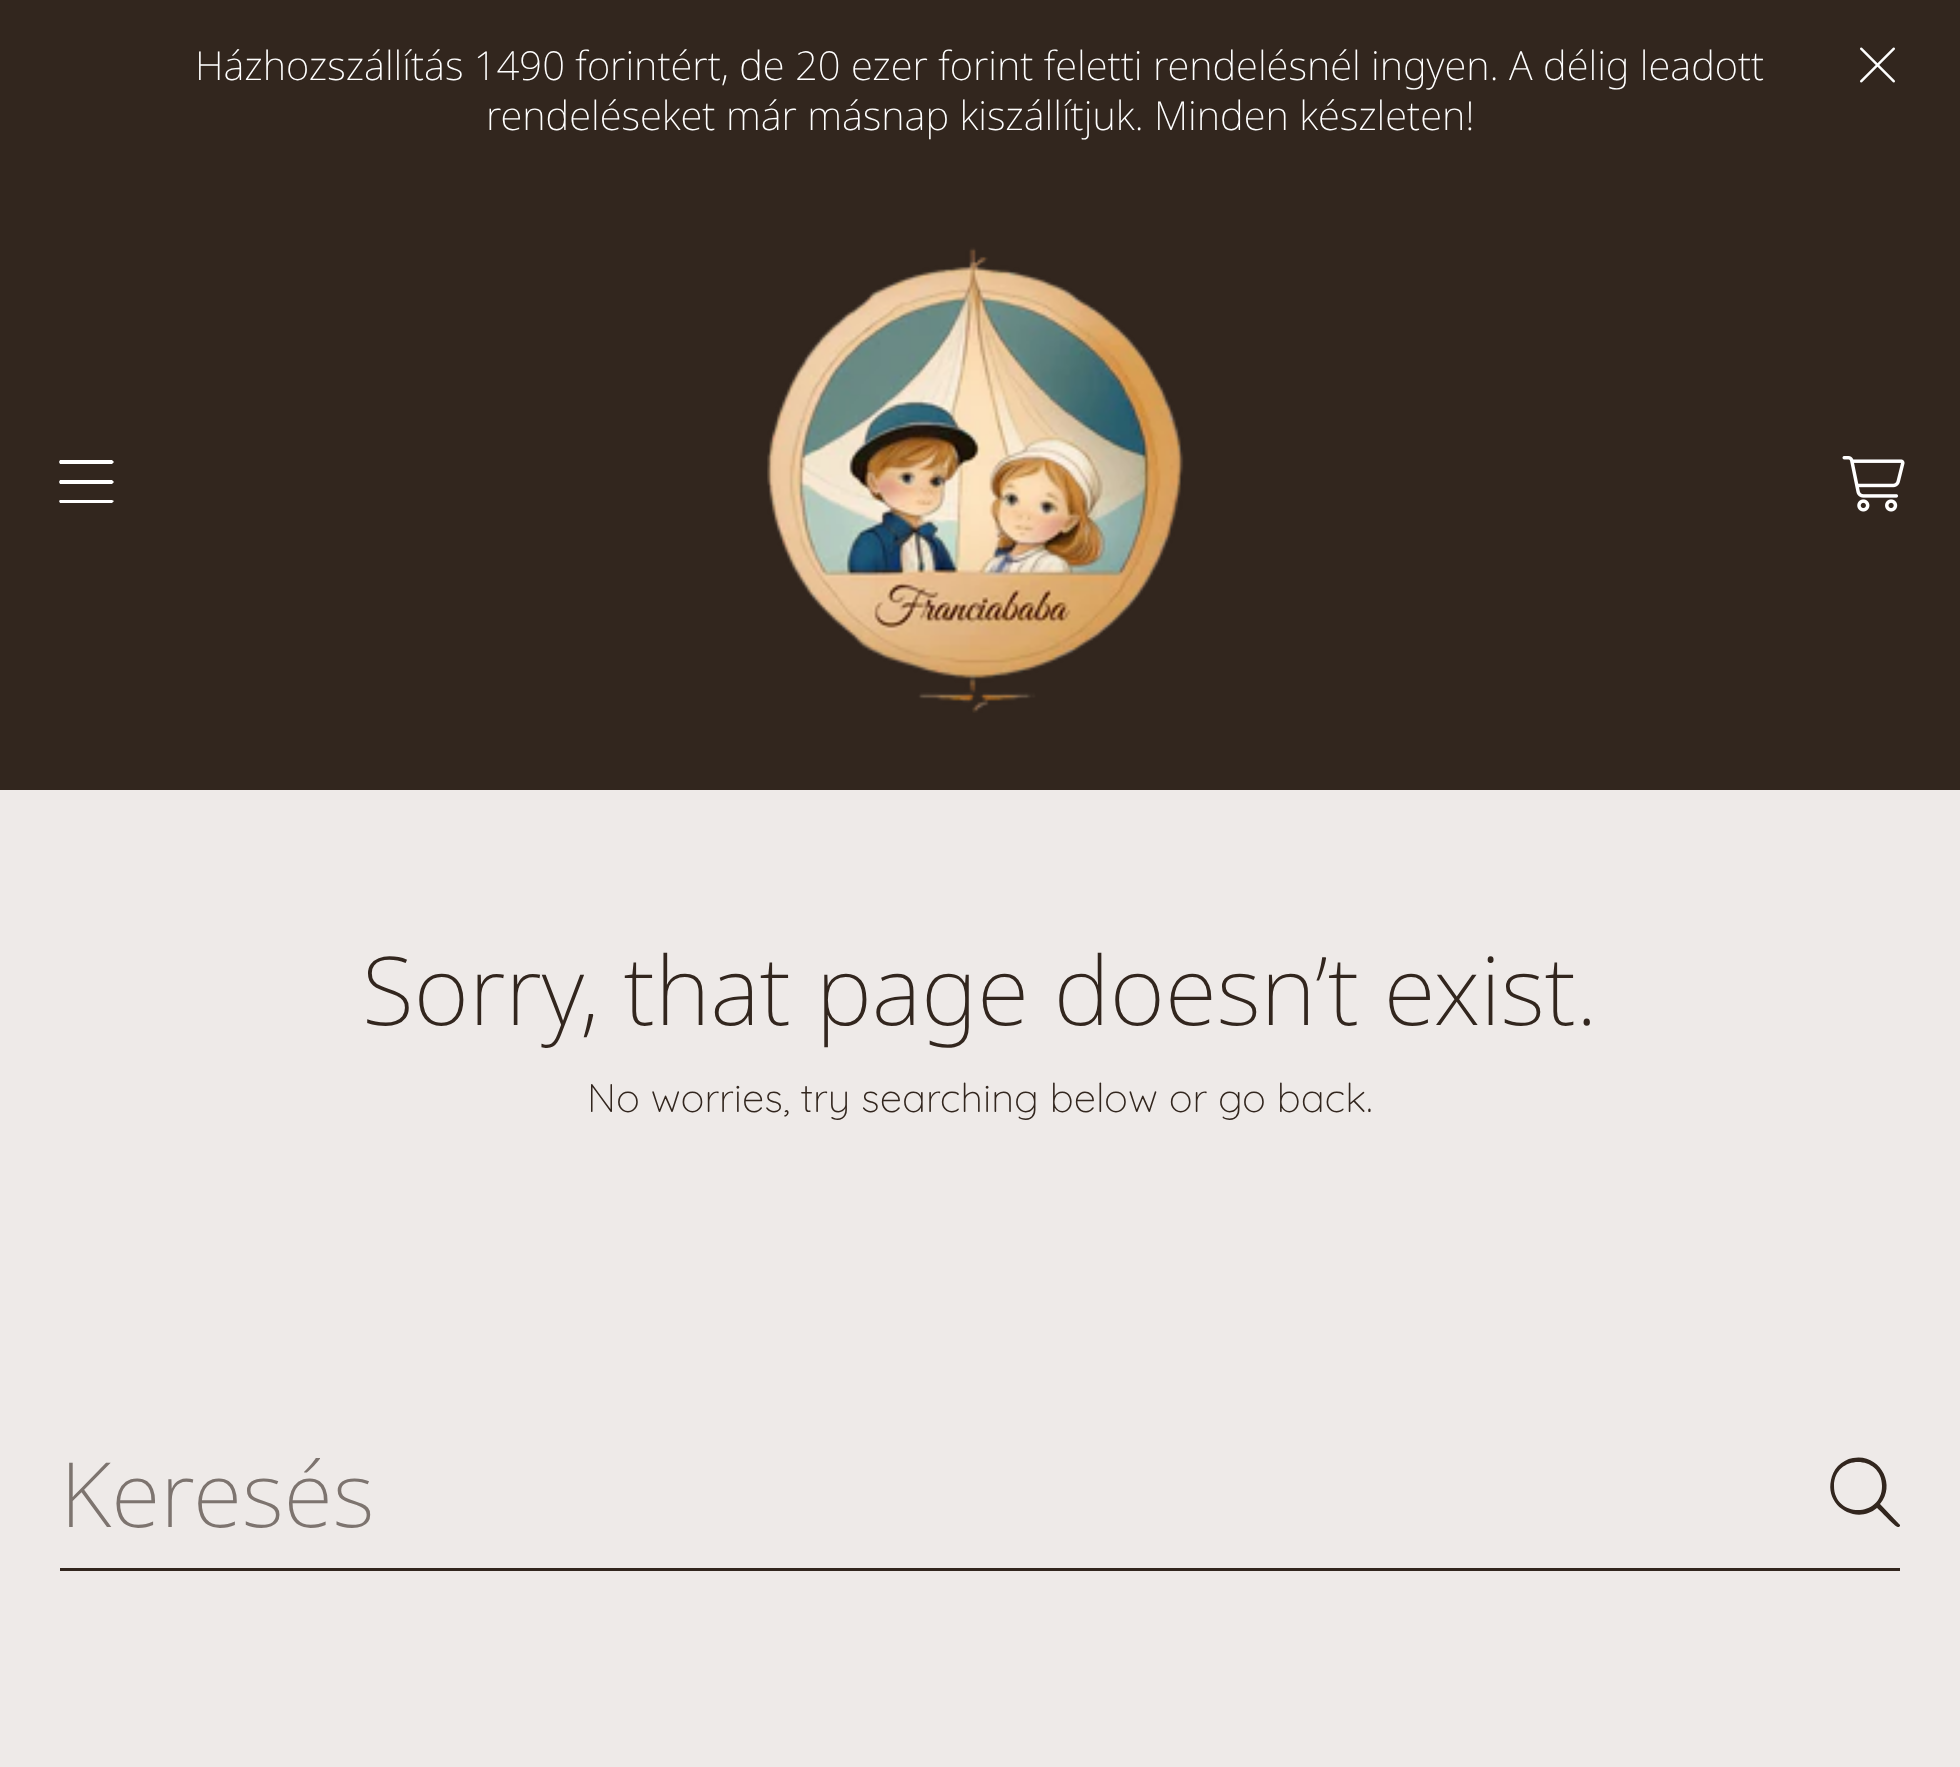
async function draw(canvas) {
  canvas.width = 1960;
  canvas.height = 1767;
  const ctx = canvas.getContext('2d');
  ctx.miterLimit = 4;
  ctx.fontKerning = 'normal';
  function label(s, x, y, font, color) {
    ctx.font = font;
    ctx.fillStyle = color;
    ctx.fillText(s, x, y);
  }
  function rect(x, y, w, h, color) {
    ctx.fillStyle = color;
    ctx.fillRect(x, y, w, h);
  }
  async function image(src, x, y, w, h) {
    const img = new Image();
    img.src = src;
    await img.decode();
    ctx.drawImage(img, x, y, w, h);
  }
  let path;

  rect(0, 0, 1960, 1767, '#eeeae8');
  rect(0, 0, 1960, 790, '#32261e');
  label('Házhozszállítás 1490 forintért, de 20 ezer forint feletti rendelésnél ingyen. A délig leadott', 195, 80, '200 40px Noto Sans', '#fff');
  label('rendeléseket már másnap kiszállítjuk. Minden készleten!', 486, 130, '200 40px Noto Sans', '#fff');
  await image('assets/img1.png', 1860, 47, 35, 36);
  path = new Path2D('M59 462L60 460H112L114 462L112 464H60ZM59 482L60 480H112L114 482L112 484H60ZM114 501L112 503H60L59 501L60 500H112Z');
  ctx.fill(path);
  await image('assets/img2.png', 767, 247, 417, 466);
  await image('assets/img3.png', 1842, 456, 63, 56);
  label('Sorry, that page doesn’t exist.', 362, 1025, '200 95px Noto Sans', '#32261e');
  label('No worries, try searching below or go back.', 587, 1112, '300 40px Quicksand', '#32261e');
  rect(60, 1568, 1840, 3, '#32261e');
  label('Keresés', 60, 1527, '200 90px Noto Sans', '#7d746f');
  ctx.fillStyle = '#32261e';
  path = new Path2D('M1882 1486C1882 1454 1834 1454 1834 1486C1834 1518 1882 1518 1882 1486ZM1877 1508C1857 1525 1825 1507 1831 1480C1832 1475 1834 1470 1838 1466C1842 1462 1847 1459 1853 1458C1879 1453 1897 1484 1880 1504L1899 1524C1901 1525 1900 1527 1898 1527C1896 1528 1880 1510 1877 1508Z');
  ctx.fill(path);
}

draw(document.querySelector('canvas'));
